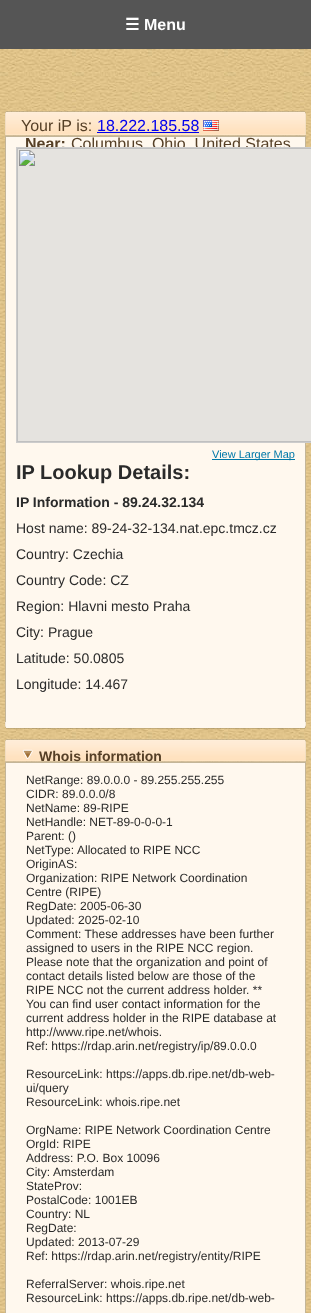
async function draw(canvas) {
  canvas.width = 311;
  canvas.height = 1313;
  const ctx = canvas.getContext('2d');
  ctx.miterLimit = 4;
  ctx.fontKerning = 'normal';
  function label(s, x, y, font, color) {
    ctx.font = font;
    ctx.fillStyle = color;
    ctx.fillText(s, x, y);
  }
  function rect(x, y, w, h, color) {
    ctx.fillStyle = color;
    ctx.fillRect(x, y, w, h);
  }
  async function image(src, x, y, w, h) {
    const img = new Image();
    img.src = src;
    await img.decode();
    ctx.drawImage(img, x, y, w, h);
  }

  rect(0, 0, 311, 1313, '#fff');
  await image('assets/img1.png', 0, 49, 311, 1264);
  rect(0, 0, 311, 49, '#555');
  label('☰', 125, 30, 'bold 16px DejaVu Sans', '#fff');
  label('Menu', 144, 30, 'bold 16px Liberation Sans', '#fff');
  await image('assets/img2.png', 5, 111, 301, 25);
  label('Your iP is:', 21, 131, '16px Liberation Sans', '#553f26');
  label('18.222.185.58', 97, 131, '16px Liberation Sans', '#00e');
  rect(97, 132, 102, 1, '#00e');
  await image('assets/img3.png', 203, 120, 16, 11);
  rect(6, 137, 299, 585, '#fff8ee');
  label('Near:', 25, 149, 'bold 16px Liberation Sans', '#553f26');
  label('Columbus, Ohio, United States', 71, 149, '16px Liberation Sans', '#553f26');
  rect(5, 136, 301, 1, '#c3b598');
  rect(305, 136, 1, 586, '#c3b598');
  rect(5, 136, 1, 586, '#c3b598');
  ctx.strokeStyle = '#ccc';
  ctx.strokeRect(16.5, 147.5, 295, 295);
  await image('assets/img4.png', 17, 148, 294, 294);
  rect(212, 459, 83, 1, '#0078a8');
  label('View Larger Map', 212, 458, '11px Liberation Sans', '#0078a8');
  label('IP Lookup Details:', 16, 479, 'bold 20px Liberation Sans', '#2a2a2a');
  label('IP Information - 89.24.32.134', 16, 507, 'bold 14px Liberation Sans', '#2a2a2a');
  label('Host name: 89-24-32-134.nat.epc.tmcz.cz', 16, 533, '14px Liberation Sans', '#2a2a2a');
  label('Country: Czechia', 16, 559, '14px Liberation Sans', '#2a2a2a');
  label('Country Code: CZ', 16, 585, '14px Liberation Sans', '#2a2a2a');
  label('Region: Hlavni mesto Praha', 16, 611, '14px Liberation Sans', '#2a2a2a');
  label('City: Prague', 16, 637, '14px Liberation Sans', '#2a2a2a');
  label('Latitude: 50.0805', 16, 663, '14px Liberation Sans', '#2a2a2a');
  label('Longitude: 14.467', 16, 689, '14px Liberation Sans', '#2a2a2a');
  await image('assets/img5.png', 5, 722, 301, 7);
  await image('assets/img6.png', 5, 739, 301, 23);
  await image('assets/img7.png', 22, 749, 11, 10);
  label('Whois information', 39, 761, 'bold 14px Liberation Sans', '#553f26');
  rect(6, 763, 299, 550, '#fff8ee');
  rect(5, 762, 301, 1, '#c3b598');
  rect(305, 762, 1, 551, '#c3b598');
  rect(5, 762, 1, 551, '#c3b598');
  label('NetRange: 89.0.0.0 - 89.255.255.255', 26, 784, '12px Liberation Sans', '#2a2a2a');
  label('CIDR: 89.0.0.0/8', 26, 798, '12px Liberation Sans', '#2a2a2a');
  label('NetName: 89-RIPE', 26, 812, '12px Liberation Sans', '#2a2a2a');
  label('NetHandle: NET-89-0-0-0-1', 26, 826, '12px Liberation Sans', '#2a2a2a');
  label('Parent: ()', 26, 840, '12px Liberation Sans', '#2a2a2a');
  label('NetType:', 26, 854, '12px Liberation Sans', '#2a2a2a');
  label('Allocated to RIPE NCC', 77, 854, '12px Liberation Sans', '#2a2a2a');
  label('OriginAS:', 26, 868, '12px Liberation Sans', '#2a2a2a');
  label('Organization: RIPE Network Coordination', 26, 882, '12px Liberation Sans', '#2a2a2a');
  label('Centre (RIPE)', 26, 896, '12px Liberation Sans', '#2a2a2a');
  label('RegDate: 2005-06-30', 26, 910, '12px Liberation Sans', '#2a2a2a');
  label('Updated: 2025-02-10', 26, 924, '12px Liberation Sans', '#2a2a2a');
  label('Comment: These addresses have been further', 26, 938, '12px Liberation Sans', '#2a2a2a');
  label('assigned to users in the RIPE NCC region.', 26, 952, '12px Liberation Sans', '#2a2a2a');
  label('Please note that the organization and point of', 26, 966, '12px Liberation Sans', '#2a2a2a');
  label('contact details listed below are those of the', 26, 980, '12px Liberation Sans', '#2a2a2a');
  label('RIPE NCC not the current address holder. **', 26, 994, '12px Liberation Sans', '#2a2a2a');
  label('You can find user contact information for the', 26, 1008, '12px Liberation Sans', '#2a2a2a');
  label('current address holder in the RIPE database at', 26, 1022, '12px Liberation Sans', '#2a2a2a');
  label('http://www.ripe.net/whois.', 26, 1036, '12px Liberation Sans', '#2a2a2a');
  label('Ref: https://rdap.arin.net/registry/ip/89.0.0.0', 26, 1050, '12px Liberation Sans', '#2a2a2a');
  label('ResourceLink: https://apps.db.ripe.net/db-web-', 26, 1078, '12px Liberation Sans', '#2a2a2a');
  label('ui/query', 26, 1092, '12px Liberation Sans', '#2a2a2a');
  label('ResourceLink: whois.ripe.net', 26, 1106, '12px Liberation Sans', '#2a2a2a');
  label('OrgName: RIPE Network Coordination Centre', 26, 1134, '12px Liberation Sans', '#2a2a2a');
  label('OrgId: RIPE', 26, 1148, '12px Liberation Sans', '#2a2a2a');
  label('Address: P.O. Box 10096', 26, 1162, '12px Liberation Sans', '#2a2a2a');
  label('City:', 26, 1176, '12px Liberation Sans', '#2a2a2a');
  label('Amsterdam', 53, 1176, '12px Liberation Sans', '#2a2a2a');
  label('StateProv:', 26, 1190, '12px Liberation Sans', '#2a2a2a');
  label('PostalCode: 1001EB', 26, 1204, '12px Liberation Sans', '#2a2a2a');
  label('Country: NL', 26, 1218, '12px Liberation Sans', '#2a2a2a');
  label('RegDate:', 26, 1232, '12px Liberation Sans', '#2a2a2a');
  label('Updated: 2013-07-29', 26, 1246, '12px Liberation Sans', '#2a2a2a');
  label('Ref: https://rdap.arin.net/registry/entity/RIPE', 26, 1260, '12px Liberation Sans', '#2a2a2a');
  label('ReferralServer: whois.ripe.net', 26, 1288, '12px Liberation Sans', '#2a2a2a');
  label('ResourceLink: https://apps.db.ripe.net/db-web-', 26, 1302, '12px Liberation Sans', '#2a2a2a');
}

draw(document.querySelector('canvas'));
